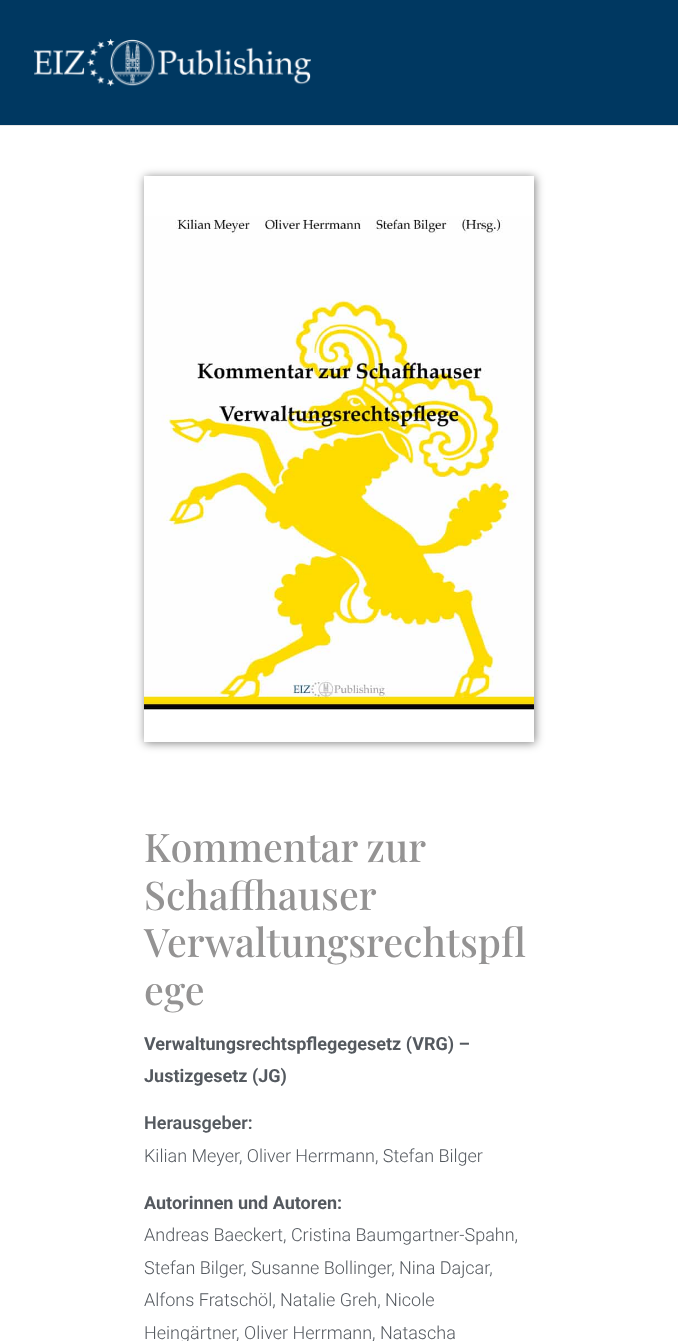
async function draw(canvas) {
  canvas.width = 678;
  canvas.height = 1341;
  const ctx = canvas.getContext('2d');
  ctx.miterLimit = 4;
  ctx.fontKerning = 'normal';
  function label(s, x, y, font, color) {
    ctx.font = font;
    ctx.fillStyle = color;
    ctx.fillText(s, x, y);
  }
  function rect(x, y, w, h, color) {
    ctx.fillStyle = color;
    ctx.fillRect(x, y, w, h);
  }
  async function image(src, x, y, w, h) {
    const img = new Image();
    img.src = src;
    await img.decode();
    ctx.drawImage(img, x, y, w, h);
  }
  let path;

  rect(0, 0, 678, 1341, '#fff');
  rect(0, 0, 678, 125, '#003861');
  rect(0, 125, 678, 1, '#e7e7e7');
  await image('assets/img1.png', 34, 39, 277, 47);
  ctx.save();
  path = new Path2D('M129 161H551V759H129ZM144 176H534V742H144Z');
  ctx.clip(path, 'evenodd');
  ctx.fillStyle = '#00000080';
  ctx.filter = 'blur(5px)';
  ctx.beginPath();
  ctx.rect(145, 177, 390, 566);
  ctx.fill();
  ctx.filter = 'none';
  ctx.restore();
  await image('assets/img2.png', 144, 216, 390, 494);
  ctx.wordSpacing = '-1px';
  label('Kommentar zur', 144, 862, '500 39.5px Playfair Display', '#949393');
  ctx.wordSpacing = '0px';
  label('Schaffhauser', 144, 910, '500 39.5px Playfair Display', '#949393');
  label('Verwaltungsrechtspfl', 144, 957, '500 39.5px Playfair Display', '#949393');
  label('ege', 144, 1005, '500 39.5px Playfair Display', '#949393');
  label('Verwaltungsrechtspflegegesetz (VRG) –', 144, 1050, 'bold 18px Roboto', '#54595f');
  label('Justizgesetz (JG)', 144, 1082, 'bold 18px Roboto', '#54595f');
  label('Herausgeber:', 144, 1129, '600 18px Roboto', '#54595f');
  label('Kilian Meyer, Oliver Herrmann, Stefan Bilger', 144, 1162, '300 18px Roboto', '#54595f');
  label('Autorinnen und Autoren:', 144, 1209, 'bold 18px Roboto', '#54595f');
  label('Andreas Baeckert, Cristina Baumgartner-Spahn,', 144, 1241, '300 18px Roboto', '#54595f');
  label('Stefan Bilger, Susanne Bollinger, Nina Dajcar,', 144, 1274, '300 18px Roboto', '#54595f');
  label('Alfons Fratschöl, Natalie Greh, Nicole', 144, 1306, '300 18px Roboto', '#54595f');
  label('Heingärtner, Oliver Herrmann, Natascha', 144, 1339, '300 18px Roboto', '#54595f');
}

draw(document.querySelector('canvas'));
